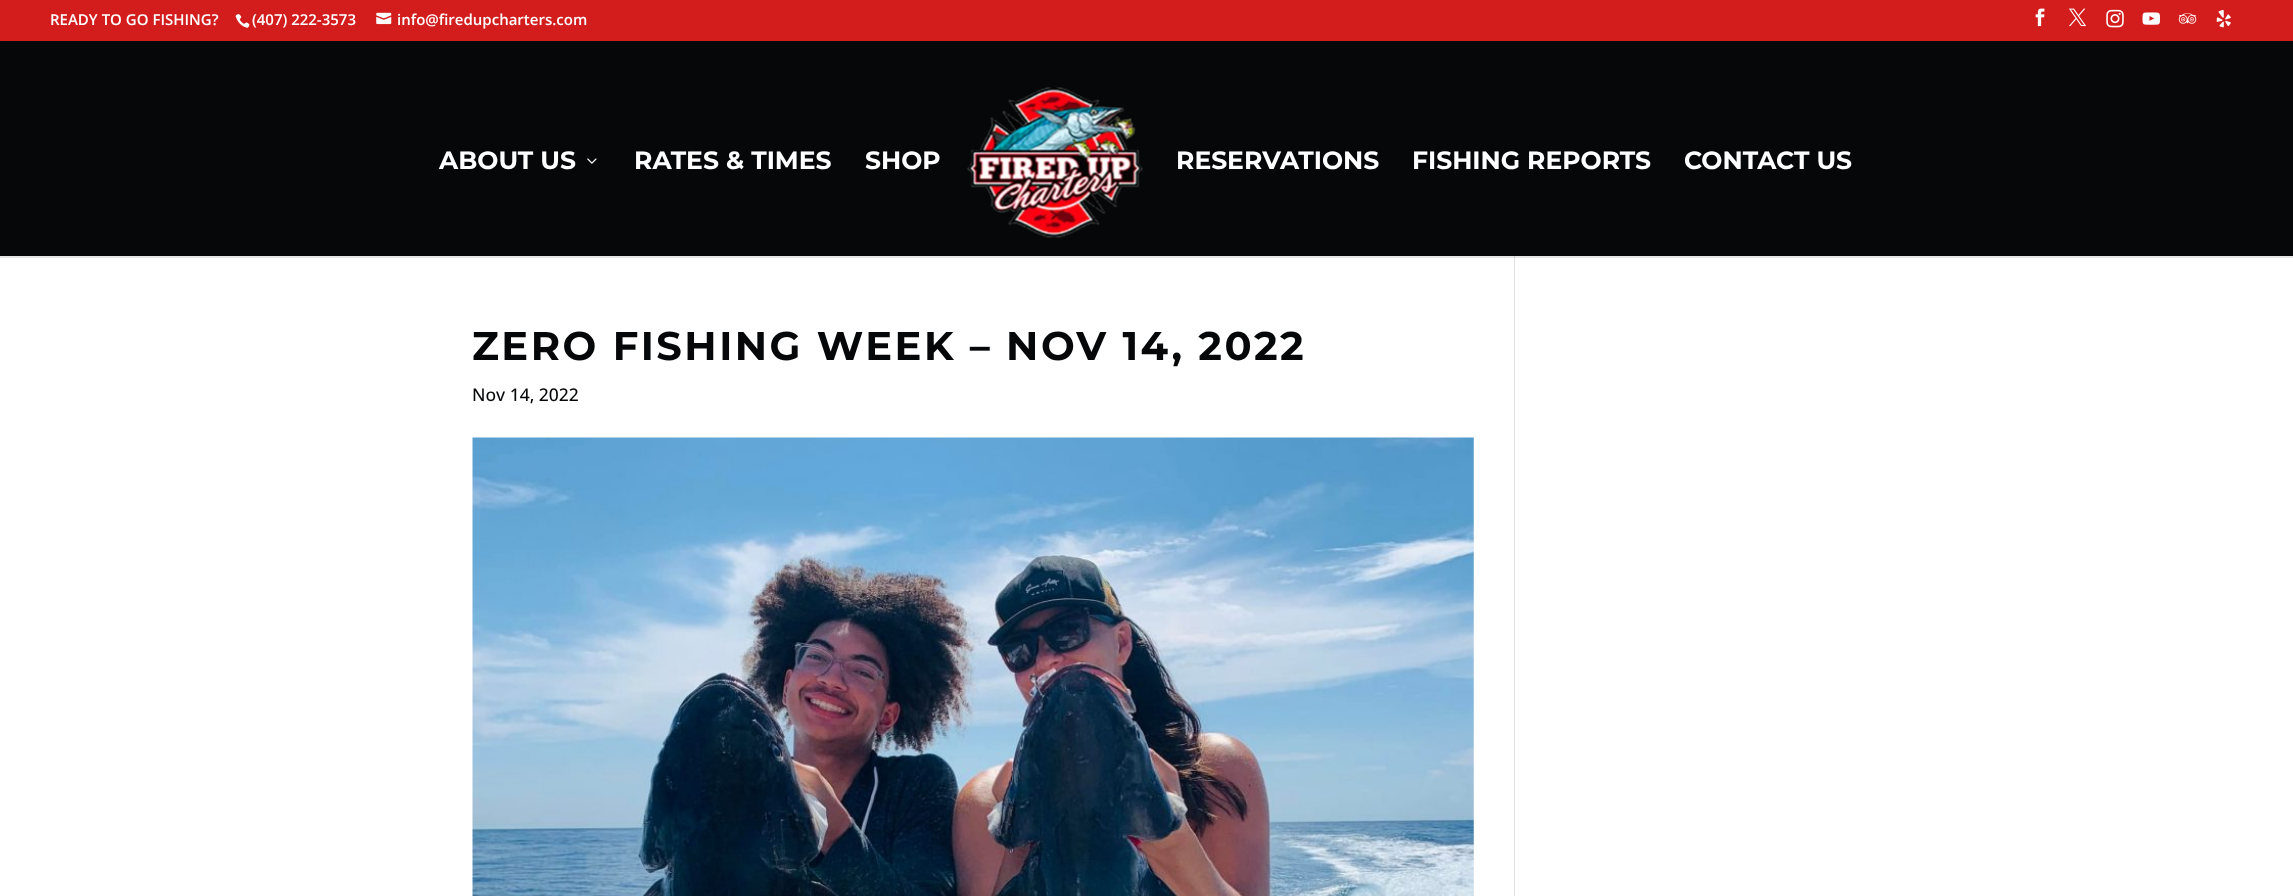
async function draw(canvas) {
  canvas.width = 2293;
  canvas.height = 896;
  const ctx = canvas.getContext('2d');
  ctx.miterLimit = 4;
  ctx.fontKerning = 'normal';
  function label(s, x, y, font, color) {
    ctx.font = font;
    ctx.fillStyle = color;
    ctx.fillText(s, x, y);
  }
  function rect(x, y, w, h, color) {
    ctx.fillStyle = color;
    ctx.fillRect(x, y, w, h);
  }
  async function image(src, x, y, w, h) {
    const img = new Image();
    img.src = src;
    await img.decode();
    ctx.drawImage(img, x, y, w, h);
  }
  let path;

  rect(0, 0, 2293, 896, '#fff');
  rect(0, 0, 2293, 41, '#d31d1d');
  label('READY TO GO FISHING?', 50, 25, '600 15px Open Sans', '#fff');
  await image('assets/img1.png', 235, 14, 15, 14);
  label('(407) 222-3573', 252, 25, '600 15px Open Sans', '#fff');
  await image('assets/img2.png', 376, 12, 16, 13);
  label('info@firedupcharters.com', 397, 25, '600 15px Open Sans', '#fff');
  await image('assets/img3.png', 2035, 8, 10, 19);
  await image('assets/img4.png', 2068, 8, 18, 19);
  await image('assets/img5.png', 2106, 9, 18, 19);
  await image('assets/img6.png', 2142, 12, 18, 13);
  await image('assets/img7.png', 2178, 13, 19, 11);
  await image('assets/img8.png', 2216, 9, 15, 19);
  rect(1514, 254, 1, 642, '#e2e2e2');
  ctx.fillStyle = '#0000001a';
  path = new Path2D('M0 256V258H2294V43V256Z');
  ctx.fill(path);
  rect(0, 41, 2293, 215, '#050708');
  label('ABOUT US', 439, 169, 'bold 25px Montserrat', '#fff');
  await image('assets/img9.png', 587, 158, 10, 6);
  label('RATES & TIMES', 634, 169, 'bold 25px Montserrat', '#fff');
  label('SHOP', 865, 169, 'bold 25px Montserrat', '#fff');
  await image('assets/img10.png', 967, 87, 176, 151);
  label('RESERVATIONS', 1176, 169, 'bold 25px Montserrat', '#fff');
  label('FISHING REPORTS', 1412, 169, 'bold 25px Montserrat', '#fff');
  label('CONTACT US', 1684, 169, 'bold 25px Montserrat', '#fff');
  ctx.letterSpacing = '2.5px';
  label('ZERO FISHING WEEK – NOV 14, 2022', 472, 360, 'bold 40px Montserrat', '#050708');
  ctx.letterSpacing = '0px';
  label('Nov 14, 2022', 472, 401, '500 17.5px Open Sans', '#050708');
  await image('assets/img11.png', 472, 437, 1002, 459);
}

draw(document.querySelector('canvas'));
